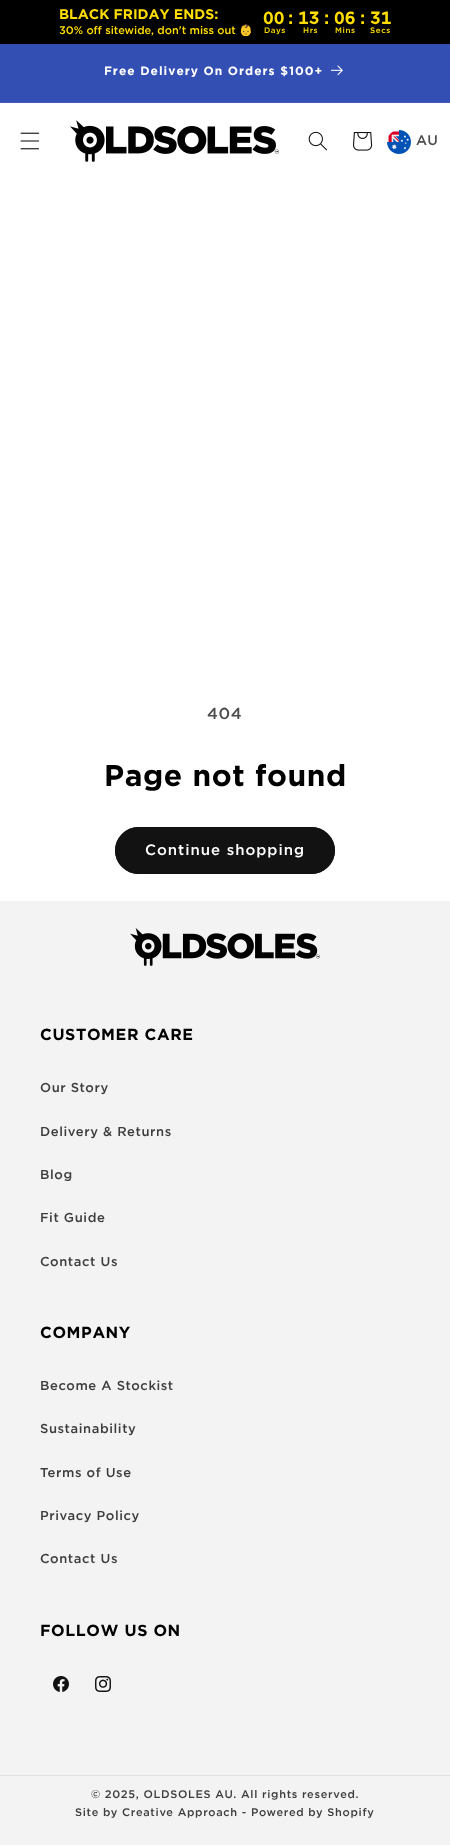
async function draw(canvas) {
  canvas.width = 450;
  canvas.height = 1845;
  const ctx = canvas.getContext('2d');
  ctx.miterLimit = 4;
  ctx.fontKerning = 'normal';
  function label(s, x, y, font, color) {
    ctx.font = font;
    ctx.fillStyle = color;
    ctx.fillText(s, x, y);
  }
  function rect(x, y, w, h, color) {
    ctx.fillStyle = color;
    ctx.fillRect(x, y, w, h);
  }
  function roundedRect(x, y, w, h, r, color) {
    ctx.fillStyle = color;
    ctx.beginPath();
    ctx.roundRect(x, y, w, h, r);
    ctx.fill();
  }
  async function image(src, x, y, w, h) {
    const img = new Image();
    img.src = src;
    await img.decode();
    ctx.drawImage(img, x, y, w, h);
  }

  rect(0, 0, 450, 1845, '#fff');
  rect(0, 0, 450, 44, '#000');
  label('BLACK FRIDAY ENDS:', 59, 19, 'bold 14px Gotham', '#fd0');
  label('30% off sitewide, don\'t miss out', 59, 34, '500 11px Gotham', '#fd0');
  label('👶', 239, 34, '11px Noto Color Emoji', '#fd0');
  ctx.letterSpacing = '0.6px';
  label('00', 263, 24, 'bold 17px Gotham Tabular', '#fd0');
  label(':', 288, 24, 'bold 17px "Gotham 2"', '#fd0');
  label('13', 298, 24, 'bold 17px Gotham Tabular', '#fd0');
  label(':', 324, 24, 'bold 17px "Gotham 2"', '#fd0');
  label('06', 334, 24, 'bold 17px Gotham Tabular', '#fd0');
  label(':', 360, 24, 'bold 17px "Gotham 2"', '#fd0');
  label('31', 370, 24, 'bold 17px Gotham Tabular', '#fd0');
  label('Days', 264, 33, '500 8px Gotham', '#fd0');
  label('Hrs', 303, 33, '500 8px Gotham', '#fd0');
  label('Mins', 335, 33, '500 8px Gotham', '#fd0');
  label('Secs', 370, 33, '500 8px Gotham', '#fd0');
  rect(0, 44, 450, 58, '#334fb4');
  rect(0, 102, 450, 1, '#435dba');
  ctx.letterSpacing = '1px';
  label('Free Delivery On Orders $100+', 104, 75, 'bold 12px Gotham', '#fff');
  await image('assets/img1.png', 331, 65, 12, 11);
  await image('assets/img2.png', 20, 132, 20, 18);
  await image('assets/img3.png', 70, 120, 209, 42);
  await image('assets/img4.png', 308, 131, 19, 20);
  await image('assets/img5.png', 353, 132, 20, 19);
  await image('assets/img6.png', 387, 130, 24, 24);
  ctx.letterSpacing = '0.6px';
  label('AU', 416, 145, '500 14px Gotham', '#4d4d4d');
  label('404', 207, 719, '500 16px Gotham', '#4d4d4d');
  label('Page not found', 104, 786, 'bold 30px Gotham', '#000');
  roundedRect(115, 827, 220, 47, 23.5, '#121212');
  ctx.beginPath();
  ctx.roundRect(115.5, 827.5, 219, 46, 23);
  ctx.strokeStyle = '#121212';
  ctx.stroke();
  ctx.letterSpacing = '1px';
  label('Continue shopping', 145, 855, '500 15px Gotham', '#fff');
  rect(0, 901, 450, 944, '#f3f3f3');
  await image('assets/img7.png', 130, 928, 190, 38);
  ctx.letterSpacing = '0.6px';
  label('CUSTOMER CARE', 40, 1040, 'bold 16px Gotham', '#000');
  label('Our Story', 40, 1092, '500 13px Gotham', '#3d3d3d');
  label('Delivery & Returns', 40, 1136, '500 13px Gotham', '#3d3d3d');
  label('Blog', 40, 1179, '500 13px Gotham', '#3d3d3d');
  label('Fit Guide', 40, 1222, '500 13px Gotham', '#3d3d3d');
  label('Contact Us', 40, 1266, '500 13px Gotham', '#3d3d3d');
  label('COMPANY', 40, 1338, 'bold 16px Gotham', '#000');
  label('Become A Stockist', 40, 1390, '500 13px Gotham', '#3d3d3d');
  label('Sustainability', 40, 1433, '500 13px Gotham', '#3d3d3d');
  label('Terms of Use', 40, 1477, '500 13px Gotham', '#3d3d3d');
  label('Privacy Policy', 40, 1520, '500 13px Gotham', '#3d3d3d');
  label('Contact Us', 40, 1563, '500 13px Gotham', '#3d3d3d');
  label('FOLLOW US ON', 40, 1636, 'bold 16px Gotham', '#000');
  await image('assets/img8.png', 53, 1676, 16, 16);
  await image('assets/img9.png', 95, 1676, 16, 16);
  rect(0, 1775, 450, 1, '#e1e1e1');
  ctx.letterSpacing = '0.7px';
  label('© 2025, OLDSOLES AU. All rights reserved.', 91, 1798, '500 11px Gotham', '#3d3d3d');
  label('Site by Creative Approach - Powered by Shopify', 75, 1816, '500 11px Gotham', '#3d3d3d');
}

draw(document.querySelector('canvas'));
